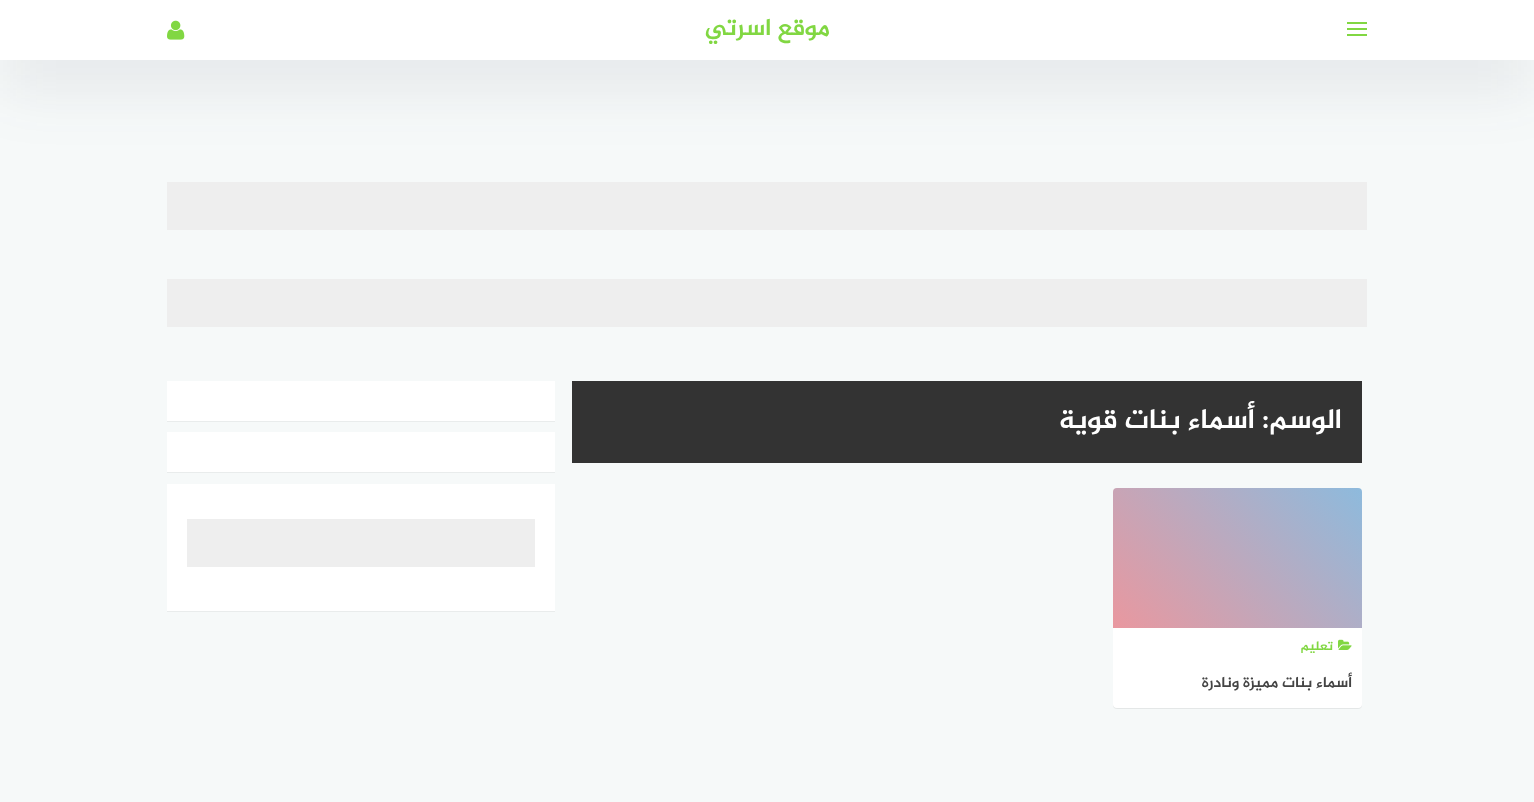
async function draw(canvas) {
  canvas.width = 1534;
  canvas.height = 802;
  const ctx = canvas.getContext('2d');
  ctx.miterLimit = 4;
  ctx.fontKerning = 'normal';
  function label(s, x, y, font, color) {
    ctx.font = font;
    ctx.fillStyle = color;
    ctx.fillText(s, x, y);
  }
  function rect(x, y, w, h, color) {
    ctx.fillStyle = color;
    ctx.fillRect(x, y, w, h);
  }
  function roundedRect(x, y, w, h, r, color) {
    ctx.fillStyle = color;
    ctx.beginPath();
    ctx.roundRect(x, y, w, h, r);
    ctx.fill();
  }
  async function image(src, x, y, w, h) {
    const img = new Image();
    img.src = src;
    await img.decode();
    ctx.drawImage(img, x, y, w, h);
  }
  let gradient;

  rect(0, 0, 1534, 802, '#f6f9f9');
  ctx.fillStyle = '#36394917';
  ctx.filter = 'blur(30px)';
  ctx.beginPath();
  ctx.rect(0, 29, 1534, 60);
  ctx.fill();
  ctx.filter = 'none';
  rect(0, 0, 1534, 60, '#fff');
  rect(1347, 22, 20, 2, '#81d742');
  rect(1347, 28, 20, 2, '#81d742');
  rect(1347, 34, 20, 2, '#81d742');
  ctx.direction = 'rtl';
  label('موقع اسرتي', 830, 35, 'bold 24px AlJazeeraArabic', '#81d742');
  await image('assets/img1.png', 167, 20, 18, 20);
  rect(167, 182, 1200, 48, '#eee');
  rect(167, 279, 1200, 48, '#eee');
  rect(572, 381, 790, 82, '#333');
  label('الوسم:', 1342, 428, 'bold 28px AlJazeeraArabic', '#fff');
  label('أسماء بنات قوية', 1255, 428, 'bold 28px AlJazeeraArabic', '#fff');
  ctx.fillStyle = '#00000012';
  ctx.filter = 'blur(0.5px)';
  ctx.beginPath();
  ctx.roundRect(1113, 489, 249, 220, 4);
  ctx.fill();
  ctx.filter = 'none';
  roundedRect(1113, 488, 249, 220, 4, '#fff');
  ctx.fillStyle = '#ececec';
  ctx.beginPath();
  ctx.roundRect(1113, 488, 249, 140, [4, 4, 0, 0]);
  ctx.fill();
  gradient = ctx.createLinearGradient(1140, 655, 1335, 461);
  gradient.addColorStop(0, '#e5192c66');
  gradient.addColorStop(1, '#0070c666');
  ctx.fillStyle = gradient;
  ctx.beginPath();
  ctx.roundRect(1113, 488, 249, 140, [4, 4, 0, 0]);
  ctx.fill();
  await image('assets/img2.png', 1338, 639, 14, 11);
  label('تعليم', 1333, 650, 'bold 13px AlJazeeraArabic', '#81d742');
  label('أسماء بنات مميزة ونادرة', 1352, 687, 'bold 15px AlJazeeraArabic', '#444');
  ctx.fillStyle = '#0000000d';
  ctx.filter = 'blur(0.5px)';
  ctx.beginPath();
  ctx.rect(167, 382, 388, 40);
  ctx.fill();
  ctx.filter = 'none';
  rect(167, 381, 388, 40, '#fff');
  ctx.fillStyle = '#0000000d';
  ctx.filter = 'blur(0.5px)';
  ctx.beginPath();
  ctx.rect(167, 433, 388, 40);
  ctx.fill();
  ctx.filter = 'none';
  rect(167, 432, 388, 40, '#fff');
  ctx.fillStyle = '#0000000d';
  ctx.filter = 'blur(0.5px)';
  ctx.beginPath();
  ctx.rect(167, 485, 388, 127);
  ctx.fill();
  ctx.filter = 'none';
  rect(167, 484, 388, 127, '#fff');
  rect(187, 519, 348, 48, '#eee');
}

draw(document.querySelector('canvas'));
